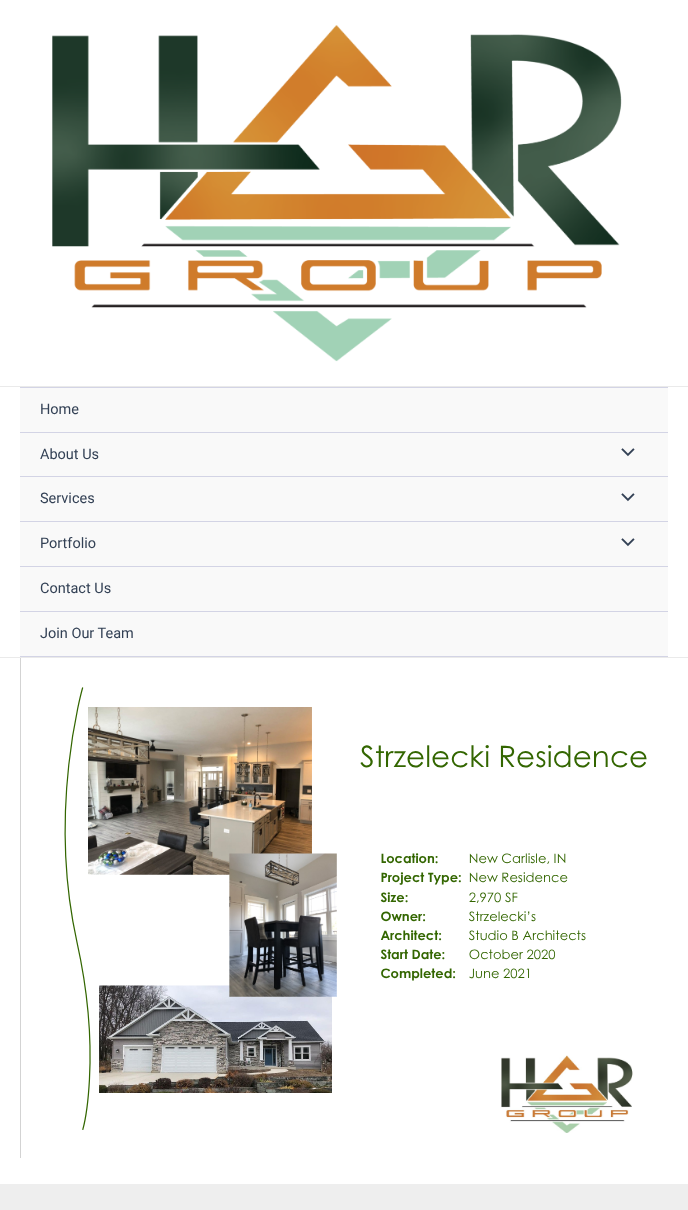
async function draw(canvas) {
  canvas.width = 688;
  canvas.height = 1210;
  const ctx = canvas.getContext('2d');
  ctx.miterLimit = 4;
  ctx.fontKerning = 'normal';
  function label(s, x, y, font, color) {
    ctx.font = font;
    ctx.fillStyle = color;
    ctx.fillText(s, x, y);
  }
  function rect(x, y, w, h, color) {
    ctx.fillStyle = color;
    ctx.fillRect(x, y, w, h);
  }
  async function image(src, x, y, w, h) {
    const img = new Image();
    img.src = src;
    await img.decode();
    ctx.drawImage(img, x, y, w, h);
  }

  rect(0, 0, 688, 1210, '#fff');
  rect(0, 386, 688, 1, '#eaeaea');
  await image('assets/img1.png', 52, 25, 570, 337);
  rect(0, 657, 688, 1, '#eaeaea');
  rect(20, 388, 648, 268, '#f9f9f9');
  rect(20, 387, 648, 1, '#d3d4e5');
  rect(20, 432, 648, 1, '#d3d4e5');
  label('Home', 40, 414, '14.5px Roboto', '#334155');
  rect(20, 476, 648, 1, '#d3d4e5');
  label('About Us', 40, 459, '14.5px Roboto', '#334155');
  await image('assets/img2.png', 621, 448, 14, 9);
  rect(20, 521, 648, 1, '#d3d4e5');
  label('Services', 40, 503, '14.5px Roboto', '#334155');
  await image('assets/img2.png', 621, 493, 14, 9);
  rect(20, 566, 648, 1, '#d3d4e5');
  label('Portfolio', 40, 548, '14.5px Roboto', '#334155');
  await image('assets/img2.png', 621, 538, 14, 9);
  rect(20, 611, 648, 1, '#d3d4e5');
  label('Contact Us', 40, 593, '14.5px Roboto', '#334155');
  rect(20, 656, 648, 1, '#d3d4e5');
  label('Join Our Team', 40, 638, '14.5px Roboto', '#334155');
  rect(20, 658, 1, 500, '#d3d3d3');
  await image('assets/img3.png', 64, 687, 583, 446);
  rect(0, 1184, 688, 26, '#eee');
}

draw(document.querySelector('canvas'));
